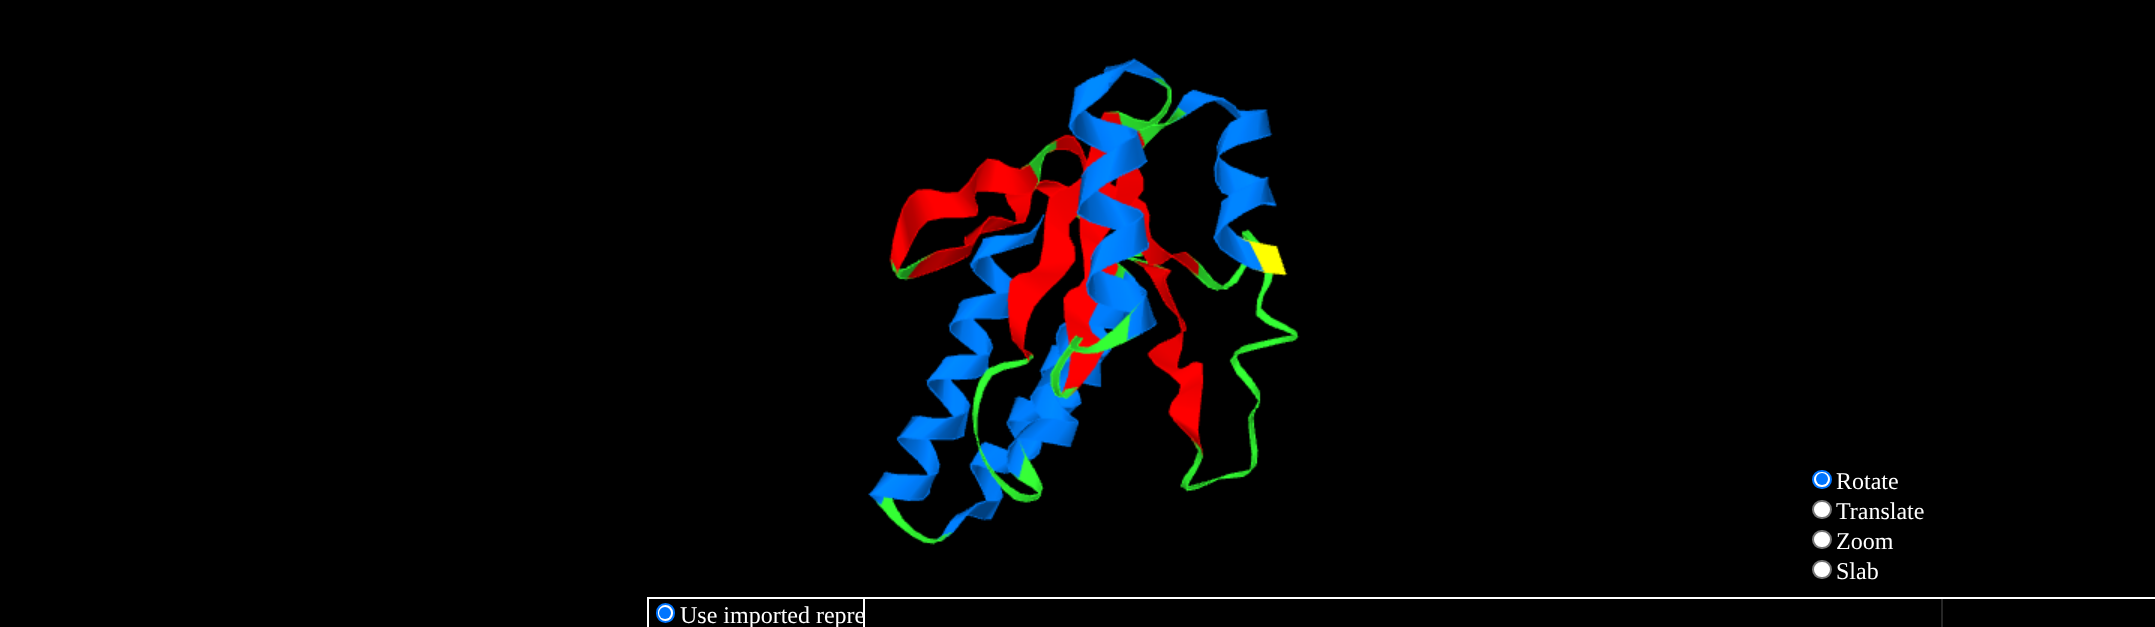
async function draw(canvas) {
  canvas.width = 2155;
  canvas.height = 627;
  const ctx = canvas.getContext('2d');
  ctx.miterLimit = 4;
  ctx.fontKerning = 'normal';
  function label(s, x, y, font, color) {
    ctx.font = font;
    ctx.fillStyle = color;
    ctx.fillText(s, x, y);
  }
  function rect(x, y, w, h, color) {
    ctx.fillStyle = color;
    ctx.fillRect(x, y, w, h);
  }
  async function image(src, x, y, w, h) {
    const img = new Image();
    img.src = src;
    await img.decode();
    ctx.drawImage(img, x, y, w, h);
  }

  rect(0, 0, 2155, 627, '#000');
  await image('assets/img1.png', 868, 58, 432, 487);
  ctx.strokeStyle = '#fff';
  ctx.lineWidth = 2;
  ctx.strokeRect(648, 598, 1294, 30);
  rect(1805, 597, 120, 2, '#000000a6');
  ctx.fillStyle = '#fff';
  ctx.beginPath();
  ctx.roundRect(1813, 471, 18, 17, 8.5);
  ctx.fill();
  ctx.strokeStyle = '#0075ff';
  ctx.stroke();
  ctx.fillStyle = '#0075ff';
  ctx.beginPath();
  ctx.arc(1822, 479, 6, 0, 2 * Math.PI);
  ctx.fill();
  label('Rotate', 1836, 489, '24px Liberation Serif', '#fff');
  ctx.beginPath();
  ctx.roundRect(1813, 501, 18, 17, 8.5);
  ctx.fill();
  ctx.strokeStyle = '#767676';
  ctx.stroke();
  label('Translate', 1836, 519, '24px Liberation Serif', '#fff');
  ctx.beginPath();
  ctx.roundRect(1813, 531, 18, 17, 8.5);
  ctx.fill();
  ctx.stroke();
  label('Zoom', 1836, 549, '24px Liberation Serif', '#fff');
  ctx.beginPath();
  ctx.roundRect(1813, 561, 18, 17, 8.5);
  ctx.fill();
  ctx.stroke();
  label('Slab', 1836, 579, '24px Liberation Serif', '#fff');
  ctx.beginPath();
  ctx.roundRect(657, 604, 17, 18, 8.5);
  ctx.fill();
  ctx.strokeStyle = '#0075ff';
  ctx.stroke();
  ctx.fillStyle = '#0075ff';
  ctx.beginPath();
  ctx.arc(665, 613, 6, 0, 2 * Math.PI);
  ctx.fill();
  label('Use imported repre', 680, 623, '24px Liberation Serif', '#fff');
  rect(1941, 599, 2, 28, '#000000d9');
  ctx.strokeStyle = '#fff';
  ctx.strokeRect(864, 598, 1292, 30);
}

draw(document.querySelector('canvas'));
